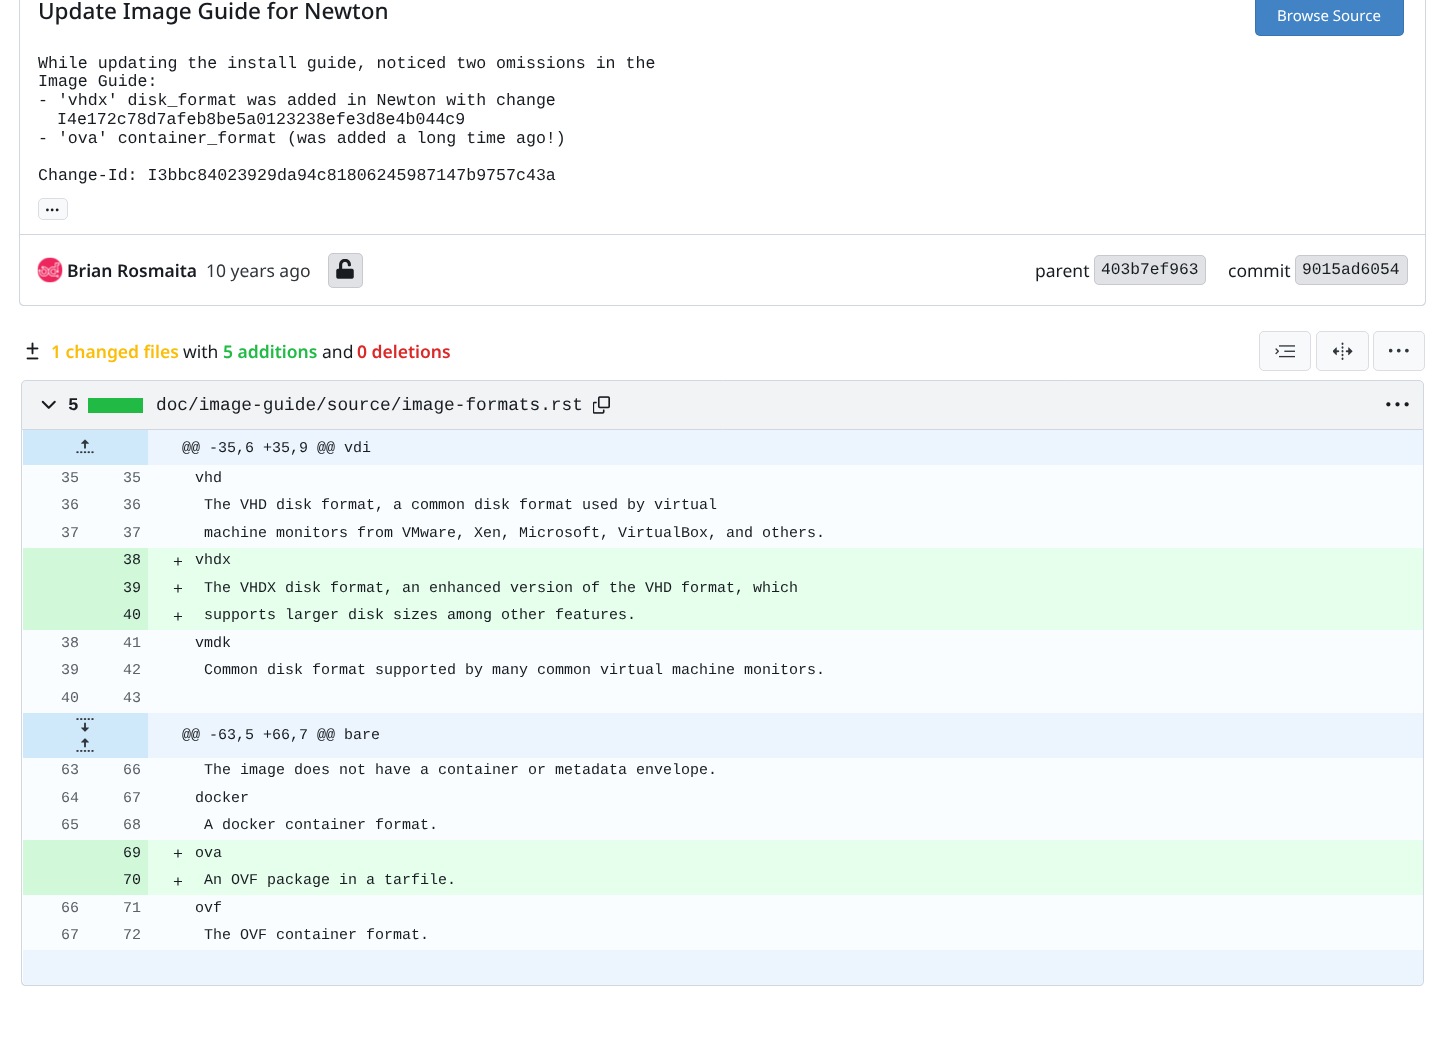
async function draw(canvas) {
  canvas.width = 1445;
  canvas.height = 1047;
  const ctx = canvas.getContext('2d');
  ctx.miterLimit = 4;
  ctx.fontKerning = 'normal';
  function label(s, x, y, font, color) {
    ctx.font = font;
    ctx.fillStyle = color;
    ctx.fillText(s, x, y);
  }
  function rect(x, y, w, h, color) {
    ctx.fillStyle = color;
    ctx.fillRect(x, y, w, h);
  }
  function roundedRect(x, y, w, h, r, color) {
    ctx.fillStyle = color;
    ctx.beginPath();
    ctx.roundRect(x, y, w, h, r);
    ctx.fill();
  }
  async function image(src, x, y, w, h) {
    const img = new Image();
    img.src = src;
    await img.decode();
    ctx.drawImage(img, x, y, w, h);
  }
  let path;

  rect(0, 0, 1445, 1047, '#fff');
  ctx.strokeStyle = '#d0d7de';
  ctx.strokeRect(19.5, -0.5, 1406, 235);
  label('Update Image Guide for Newton', 38, 19, '500 22.5px Noto Sans', '#181c21');
  roundedRect(1255, -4, 149, 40, 5, '#4183c4');
  ctx.beginPath();
  ctx.roundRect(1255.5, -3.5, 148, 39, 4.5);
  ctx.strokeStyle = '#0000171c';
  ctx.stroke();
  label('Browse Source', 1277, 21, '15px Noto Sans', '#fff');
  label('While updating the install guide, noticed two omissions in the', 38, 68, '16.6px Liberation Mono', '#181c21');
  label('Image Guide:', 38, 86, '16.6px Liberation Mono', '#181c21');
  label('- \'vhdx\' disk_format was added in Newton with change', 38, 105, '16.6px Liberation Mono', '#181c21');
  label('I4e172c78d7afeb8be5a0123238efe3d8e4b044c9', 57, 124, '16.6px Liberation Mono', '#181c21');
  label('- \'ova\' container_format (was added a long time ago!)', 38, 143, '16.6px Liberation Mono', '#181c21');
  label('Change-Id: I3bbc84023929da94c81806245987147b9757c43a', 38, 180, '16.6px Liberation Mono', '#181c21');
  roundedRect(38, 198, 30, 22, 5, '#f8f9fb');
  ctx.beginPath();
  ctx.roundRect(38.5, 198.5, 29, 21, 4.5);
  ctx.stroke();
  label('...', 45, 211, '600 17.5px Noto Sans', '#181c21');
  ctx.fillStyle = '#d0d7de';
  path = new Path2D('M19 235H1426V301C1426 304 1424 306 1421 306H24C21 306 19 304 19 301ZM20 235H1425V301C1425 303 1423 305 1421 305H24C22 305 20 303 20 301Z');
  ctx.fill(path, 'evenodd');
  await image('assets/img1.png', 37, 257, 26, 26);
  label('Brian Rosmaita', 67, 277, '600 17.5px Noto Sans', '#181c21');
  label('10 years ago', 206, 277, '17.5px Noto Sans', '#30363b');
  roundedRect(328, 253, 35, 35, 5, '#e0e2e5');
  ctx.beginPath();
  ctx.roundRect(328.5, 253.5, 34, 34, 4.5);
  ctx.stroke();
  await image('assets/img2.png', 336, 259, 18, 20);
  label('parent', 1035, 277, '17.5px Noto Sans', '#181c21');
  roundedRect(1094, 255, 112, 30, 5, '#e0e2e5');
  ctx.beginPath();
  ctx.roundRect(1094.5, 255.5, 111, 29, 4.5);
  ctx.stroke();
  label('403b7ef963', 1101, 274, '16.25px Liberation Mono', '#181c21');
  label('commit', 1228, 277, '17.5px Noto Sans', '#181c21');
  roundedRect(1295, 255, 113, 30, 5, '#e0e2e5');
  ctx.beginPath();
  ctx.roundRect(1295.5, 255.5, 112, 29, 4.5);
  ctx.stroke();
  label('9015ad6054', 1302, 274, '16.25px Liberation Mono', '#181c21');
  await image('assets/img3.png', 26, 342, 13, 18);
  label('1 changed files', 51, 358, '600 17.5px Noto Sans', '#fbbd08');
  label('with', 183, 358, '17.5px Noto Sans', '#181c21');
  label('5 additions', 223, 358, '600 17.5px Noto Sans', '#21ba45');
  label('and', 322, 358, '17.5px Noto Sans', '#181c21');
  label('0 deletions', 357, 358, '600 17.5px Noto Sans', '#db2828');
  roundedRect(1259, 331, 52, 40, 5, '#f8f9fb');
  ctx.beginPath();
  ctx.roundRect(1259.5, 331.5, 51, 39, 4.5);
  ctx.stroke();
  await image('assets/img4.png', 1275, 345, 20, 13);
  roundedRect(1316, 331, 53, 40, 5, '#f8f9fb');
  ctx.beginPath();
  ctx.roundRect(1316.5, 331.5, 52, 39, 4.5);
  ctx.stroke();
  await image('assets/img5.png', 1333, 342, 20, 18);
  roundedRect(1373, 331, 52, 40, 5, '#f8f9fb');
  ctx.beginPath();
  ctx.roundRect(1373.5, 331.5, 51, 39, 4.5);
  ctx.stroke();
  await image('assets/img6.png', 1389, 348, 20, 5);
  ctx.fillStyle = '#f1f3f5';
  ctx.beginPath();
  ctx.roundRect(21.5, 380.5, 1402, 49, [4.5, 4.5, 0, 0]);
  ctx.fill();
  ctx.strokeStyle = '#d0d7de';
  ctx.stroke();
  await image('assets/img7.png', 41, 400, 15, 9);
  label('5', 68, 410, 'bold 17.8px Liberation Mono', '#181c21');
  rect(88, 398, 55, 15, '#21ba45');
  label('doc/image-guide/source/image-formats.rst', 156, 410, '17.8px Liberation Mono', '#181c21');
  await image('assets/img8.png', 593, 396, 17, 18);
  await image('assets/img9.png', 1386, 402, 23, 5);
  ctx.fillStyle = '#d0d7de';
  path = new Path2D('M21 430H1424V981C1424 984 1422 986 1419 986H26C23 986 21 984 21 981ZM22 430H1422V981C1422 983 1421 985 1419 985H26C24 985 22 983 22 981Z');
  ctx.fill(path, 'evenodd');
  roundedRect(23, 430, 1400, 555, 5, '#fafdff');
  rect(148, 430, 1275, 35, '#ecf5fd');
  rect(23, 430, 125, 35, '#cfe8fa');
  await image('assets/img10.png', 76, 439, 18, 15);
  label('@@ -35,6 +35,9 @@ vdi', 182, 452, '15px Liberation Mono', '#181c21');
  label('35', 61, 482, '15px Liberation Mono', '#5b6167');
  label('35', 123, 482, '15px Liberation Mono', '#5b6167');
  label('vhd', 195, 482, '15px Liberation Mono', '#181c21');
  label('36', 61, 509, '15px Liberation Mono', '#5b6167');
  label('36', 123, 509, '15px Liberation Mono', '#5b6167');
  label('The VHD disk format, a common disk format used by virtual', 204, 509, '15px Liberation Mono', '#181c21');
  label('37', 61, 537, '15px Liberation Mono', '#5b6167');
  label('37', 123, 537, '15px Liberation Mono', '#5b6167');
  label('machine monitors from VMware, Xen, Microsoft, VirtualBox, and others.', 204, 537, '15px Liberation Mono', '#181c21');
  rect(148, 548, 1275, 82, '#e6ffed');
  rect(23, 548, 125, 27, '#d1f8d9');
  label('38', 123, 564, '15px Liberation Mono', '#181c21');
  label('+', 173, 567, '16.6px Liberation Mono', '#181c21');
  label('vhdx', 195, 564, '15px Liberation Mono', '#181c21');
  rect(23, 575, 125, 28, '#d1f8d9');
  label('39', 123, 592, '15px Liberation Mono', '#181c21');
  label('+', 173, 594, '16.6px Liberation Mono', '#181c21');
  label('The VHDX disk format, an enhanced version of the VHD format, which', 204, 592, '15px Liberation Mono', '#181c21');
  rect(23, 603, 125, 27, '#d1f8d9');
  label('40', 123, 619, '15px Liberation Mono', '#181c21');
  label('+', 173, 622, '16.6px Liberation Mono', '#181c21');
  label('supports larger disk sizes among other features.', 204, 619, '15px Liberation Mono', '#181c21');
  label('38', 61, 647, '15px Liberation Mono', '#5b6167');
  label('41', 123, 647, '15px Liberation Mono', '#5b6167');
  label('vmdk', 195, 647, '15px Liberation Mono', '#181c21');
  label('39', 61, 674, '15px Liberation Mono', '#5b6167');
  label('42', 123, 674, '15px Liberation Mono', '#5b6167');
  label('Common disk format supported by many common virtual machine monitors.', 204, 674, '15px Liberation Mono', '#181c21');
  label('40', 61, 702, '15px Liberation Mono', '#5b6167');
  label('43', 123, 702, '15px Liberation Mono', '#5b6167');
  rect(148, 713, 1275, 45, '#ecf5fd');
  rect(23, 713, 125, 45, '#cfe8fa');
  await image('assets/img11.png', 76, 718, 18, 14);
  await image('assets/img12.png', 76, 738, 18, 14);
  label('@@ -63,5 +66,7 @@ bare', 182, 739, '15px Liberation Mono', '#181c21');
  label('63', 61, 774, '15px Liberation Mono', '#5b6167');
  label('66', 123, 774, '15px Liberation Mono', '#5b6167');
  label('The image does not have a container or metadata envelope.', 204, 774, '15px Liberation Mono', '#181c21');
  label('64', 61, 802, '15px Liberation Mono', '#5b6167');
  label('67', 123, 802, '15px Liberation Mono', '#5b6167');
  label('docker', 195, 802, '15px Liberation Mono', '#181c21');
  label('65', 61, 829, '15px Liberation Mono', '#5b6167');
  label('68', 123, 829, '15px Liberation Mono', '#5b6167');
  label('A docker container format.', 204, 829, '15px Liberation Mono', '#181c21');
  rect(148, 840, 1275, 55, '#e6ffed');
  rect(23, 840, 125, 28, '#d1f8d9');
  label('69', 123, 857, '15px Liberation Mono', '#181c21');
  label('+', 173, 859, '16.6px Liberation Mono', '#181c21');
  label('ova', 195, 857, '15px Liberation Mono', '#181c21');
  rect(23, 868, 125, 27, '#d1f8d9');
  label('70', 123, 884, '15px Liberation Mono', '#181c21');
  label('+', 173, 887, '16.6px Liberation Mono', '#181c21');
  label('An OVF package in a tarfile.', 204, 884, '15px Liberation Mono', '#181c21');
  label('66', 61, 912, '15px Liberation Mono', '#5b6167');
  label('71', 123, 912, '15px Liberation Mono', '#5b6167');
  label('ovf', 195, 912, '15px Liberation Mono', '#181c21');
  label('67', 61, 939, '15px Liberation Mono', '#5b6167');
  label('72', 123, 939, '15px Liberation Mono', '#5b6167');
  label('The OVF container format.', 204, 939, '15px Liberation Mono', '#181c21');
  ctx.fillStyle = '#ecf5fd';
  ctx.beginPath();
  ctx.roundRect(23, 950, 125, 35, [0, 0, 0, 4]);
  ctx.fill();
  rect(148, 950, 35, 35, '#ecf5fd');
  ctx.beginPath();
  ctx.roundRect(183, 950, 1240, 35, [0, 0, 4, 0]);
  ctx.fill();
}

draw(document.querySelector('canvas'));
